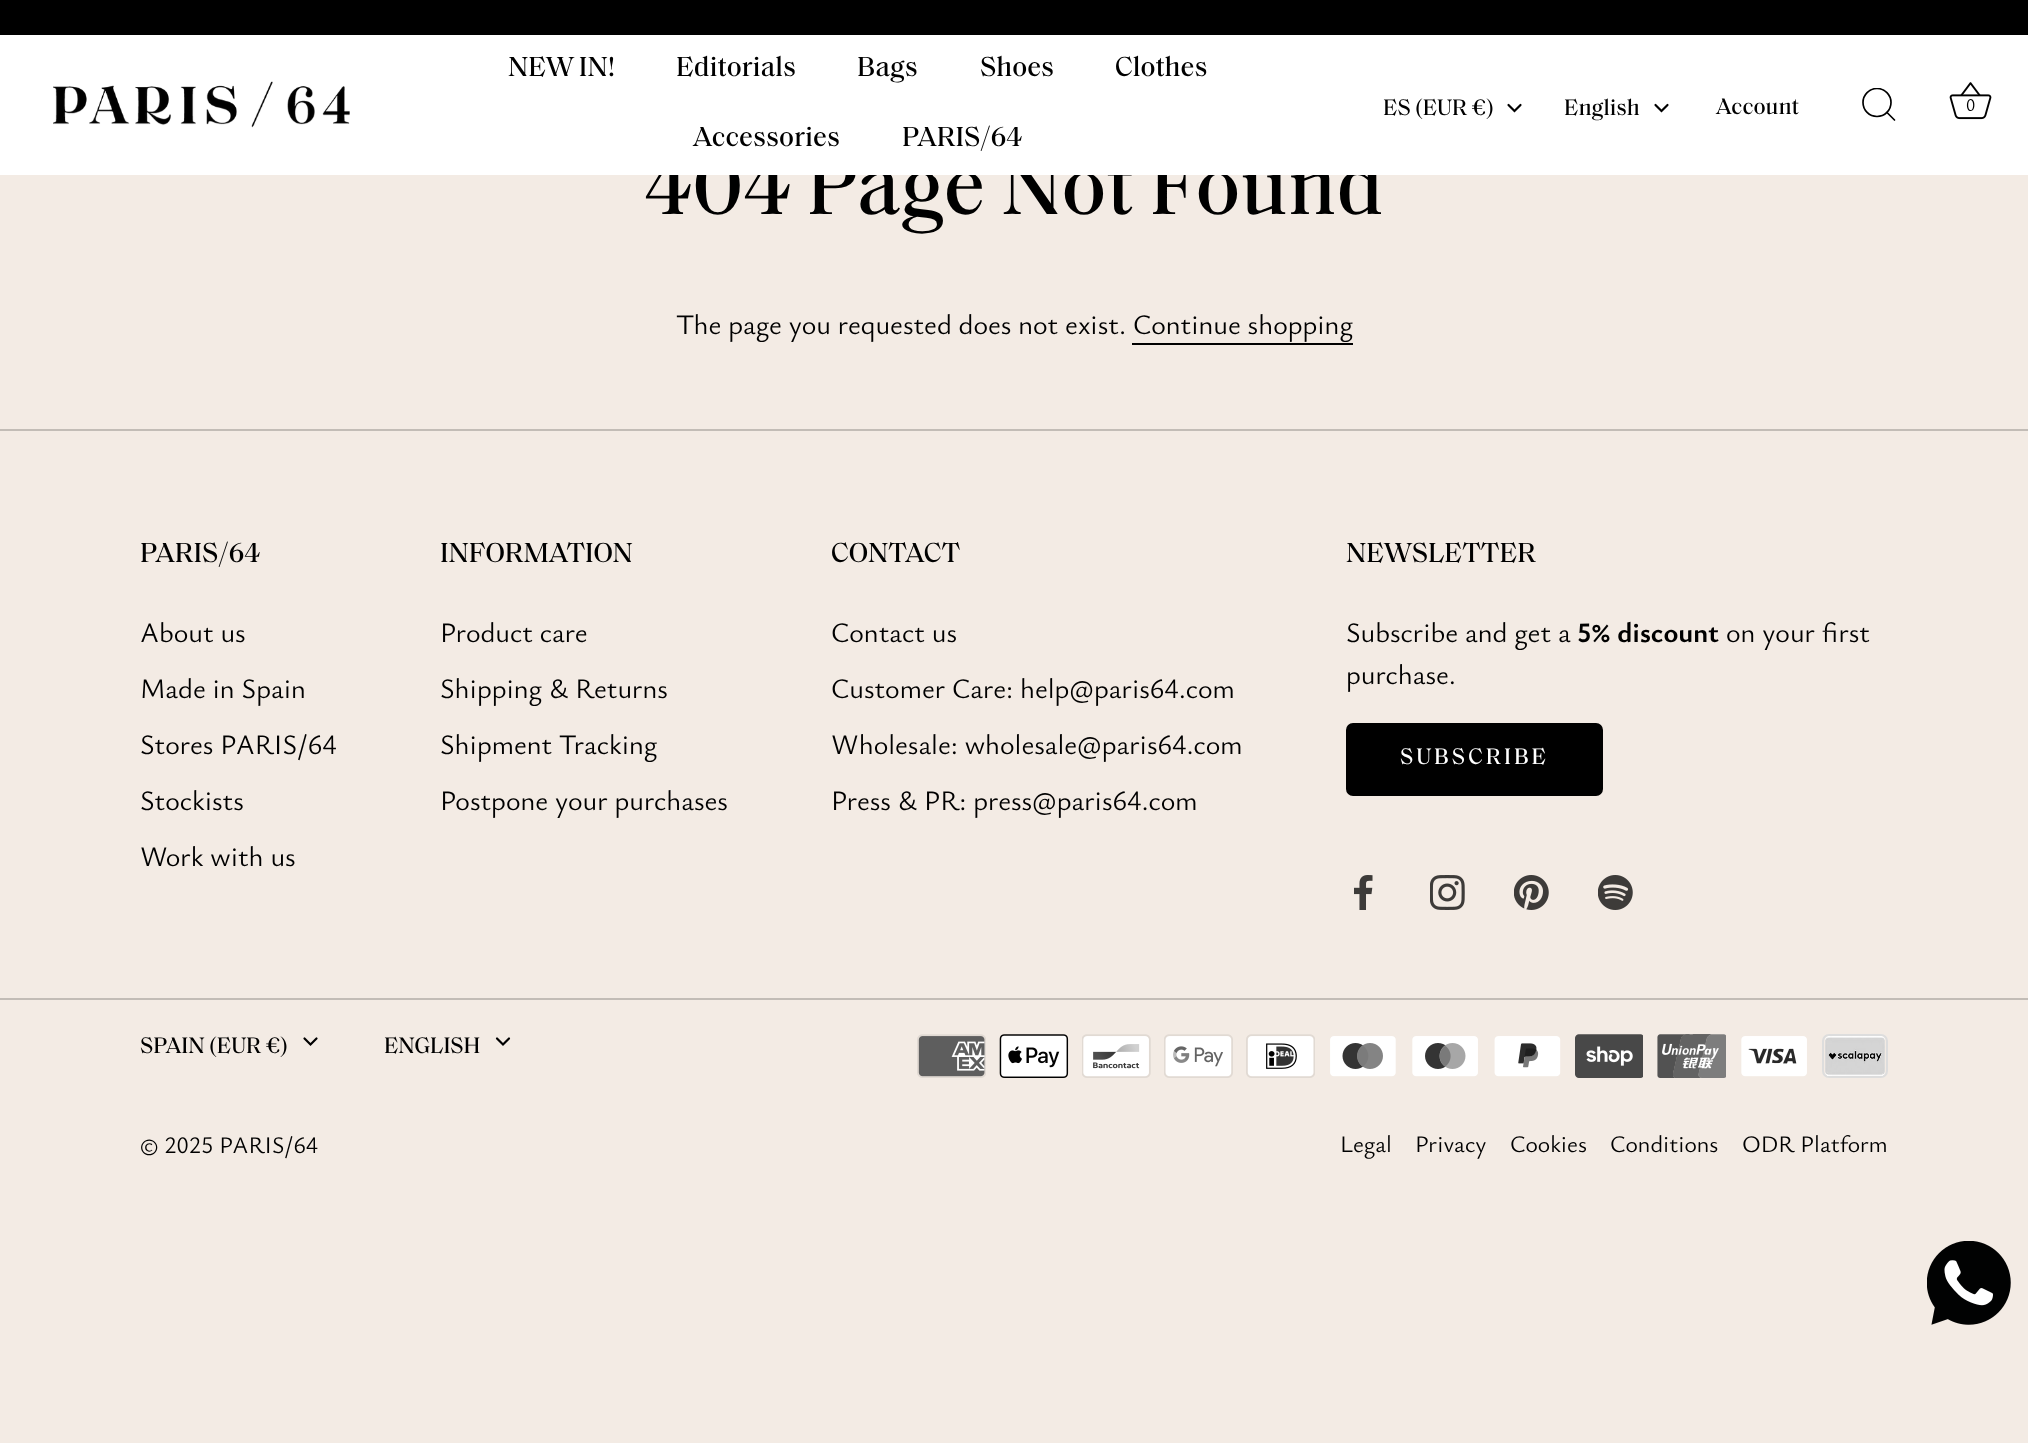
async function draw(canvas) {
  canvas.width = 2028;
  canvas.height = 1443;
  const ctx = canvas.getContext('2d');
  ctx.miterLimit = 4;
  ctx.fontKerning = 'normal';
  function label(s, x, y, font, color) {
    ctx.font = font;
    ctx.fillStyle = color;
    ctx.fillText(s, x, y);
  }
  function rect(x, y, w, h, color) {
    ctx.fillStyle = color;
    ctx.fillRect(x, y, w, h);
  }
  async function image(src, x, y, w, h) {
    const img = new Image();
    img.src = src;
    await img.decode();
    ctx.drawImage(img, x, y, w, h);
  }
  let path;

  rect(0, 0, 2028, 1443, '#f3ebe4');
  label('404 Page Not Found', 645, 214, '500 84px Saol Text', '#000');
  rect(0, 35, 2028, 140, '#fff');
  rect(0, 0, 2028, 35, '#000');
  await image('assets/img1.png', 53, 81, 297, 47);
  label('NEW IN!', 508, 76, '500 28px Saol Text', '#000');
  label('Editorials', 676, 76, '500 28px Saol Text', '#000');
  label('Bags', 857, 76, '500 28px Saol Text', '#000');
  label('Shoes', 980, 76, '500 28px Saol Text', '#000');
  label('Clothes', 1115, 76, '500 28px Saol Text', '#000');
  label('Accessories', 693, 146, '500 28px Saol Text', '#000');
  label('PARIS/64', 902, 146, '500 28px Saol Text', '#000');
  label('ES (EUR €)', 1383, 115, '500 22.75px Saol Text', '#000');
  path = new Path2D('M1508.5 105L1514.5 111L1520.5 105');
  ctx.strokeStyle = '#000';
  ctx.lineWidth = 2.2;
  ctx.lineCap = 'round';
  ctx.stroke(path);
  label('English', 1564, 115, '500 22.75px Saol Text', '#000');
  path = new Path2D('M1655.5 105L1661.5 111L1667.5 105');
  ctx.stroke(path);
  label('Account', 1716, 114, '500 22.75px Saol Text', '#000');
  ctx.save();
  ctx.beginPath();
  ctx.rect(1862, 88, 35, 35);
  ctx.clip();
  ctx.beginPath();
  ctx.arc(1877, 102.5, 14, 0, 2 * Math.PI);
  ctx.lineWidth = 1.7;
  ctx.stroke();
  ctx.restore();
  path = new Path2D('M1894.5 120L1887 112.5');
  ctx.lineWidth = 1.7;
  ctx.lineJoin = 'round';
  ctx.stroke(path);
  await image('assets/img2.png', 1949, 82, 43, 38);
  label('0', 1966, 111, '18px Ysabeau Office', '#000');
  label('The page you requested does not exist. Continue shopping', 676, 334, '28px Ysabeau Office', '#000');
  rect(1132, 343, 221, 2, '#000');
  rect(0, 429, 2028, 2, '#c2bcb6');
  label('PARIS/64', 140, 562, '500 28px Saol Text', '#000');
  label('About us', 140, 642, '28px Ysabeau Office', '#000');
  label('Made in Spain', 140, 698, '28px Ysabeau Office', '#000');
  label('Stores PARIS/64', 140, 754, '28px Ysabeau Office', '#000');
  label('Stockists', 140, 810, '28px Ysabeau Office', '#000');
  label('Work with us', 140, 866, '28px Ysabeau Office', '#000');
  label('INFORMATION', 440, 562, '500 28px Saol Text', '#000');
  label('Product care', 440, 642, '28px Ysabeau Office', '#000');
  label('Shipping & Returns', 440, 698, '28px Ysabeau Office', '#000');
  label('Shipment Tracking', 440, 754, '28px Ysabeau Office', '#000');
  label('Postpone your purchases', 440, 810, '28px Ysabeau Office', '#000');
  label('CONTACT', 831, 562, '500 28px Saol Text', '#000');
  label('Contact us', 831, 642, '28px Ysabeau Office', '#000');
  label('Customer Care: help@paris64.com', 831, 698, '28px Ysabeau Office', '#000');
  label('Wholesale: wholesale@paris64.com', 831, 754, '28px Ysabeau Office', '#000');
  label('Press & PR: press@paris64.com', 831, 810, '28px Ysabeau Office', '#000');
  label('NEWSLETTER', 1346, 562, '500 28px Saol Text', '#000');
  label('Subscribe and get a', 1346, 642, '28px Ysabeau Office', '#000');
  label('5% discount', 1577, 642, 'bold 28px Ysabeau Office', '#000');
  label('on your first', 1726, 642, '28px Ysabeau Office', '#000');
  label('purchase.', 1346, 684, '28px Ysabeau Office', '#000');
  ctx.beginPath();
  ctx.roundRect(1347, 724, 255, 71, 6);
  ctx.fill();
  ctx.lineWidth = 2;
  ctx.lineJoin = 'miter';
  ctx.stroke();
  ctx.letterSpacing = '3px';
  label('SUBSCRIBE', 1400, 764, '500 22.75px Saol Text', '#fff');
  await image('assets/img3.png', 1354, 875, 19, 35);
  await image('assets/img4.png', 1430, 875, 35, 35);
  await image('assets/img5.png', 1514, 875, 35, 35);
  await image('assets/img6.png', 1598, 875, 35, 35);
  rect(0, 998, 2028, 2, '#c2bcb6');
  ctx.letterSpacing = '0px';
  label('SPAIN (EUR €)', 140, 1053, '500 22.75px Saol Text', '#000');
  path = new Path2D('M304.5 1038.5L310.5 1044.5L316.5 1038.5');
  ctx.lineWidth = 2.2;
  ctx.stroke(path);
  label('ENGLISH', 384, 1053, '500 22.75px Saol Text', '#000');
  path = new Path2D('M497 1038.5L503 1044.5L509 1038.5');
  ctx.stroke(path);
  label('© 2025 PARIS/64', 140, 1153, '23.75px Ysabeau Office', '#000');
  await image('assets/img7.png', 917, 1034, 69, 44);
  await image('assets/img8.png', 999, 1034, 70, 44);
  await image('assets/img9.png', 1082, 1034, 69, 44);
  await image('assets/img10.png', 1164, 1034, 69, 44);
  await image('assets/img11.png', 1246, 1034, 69, 44);
  await image('assets/img12.png', 1330, 1036, 66, 41);
  await image('assets/img13.png', 1412, 1036, 66, 41);
  await image('assets/img14.png', 1494, 1036, 67, 41);
  await image('assets/img15.png', 1575, 1034, 68, 44);
  await image('assets/img16.png', 1657, 1034, 69, 44);
  await image('assets/img17.png', 1741, 1036, 66, 41);
  ctx.beginPath();
  ctx.roundRect(1823, 1035, 64, 42, 6);
  ctx.strokeStyle = '#ddd';
  ctx.lineWidth = 2;
  ctx.stroke();
  await image('assets/img18.png', 1825, 1036, 60, 40);
  label('Legal', 1340, 1152, '23.75px Ysabeau Office', '#000');
  label('Privacy', 1415, 1152, '23.75px Ysabeau Office', '#000');
  label('Cookies', 1510, 1152, '23.75px Ysabeau Office', '#000');
  label('Conditions', 1610, 1152, '23.75px Ysabeau Office', '#000');
  label('ODR Platform', 1742, 1152, '23.75px Ysabeau Office', '#000');
  await image('assets/img19.png', 1927, 1241, 84, 84);
}

draw(document.querySelector('canvas'));
